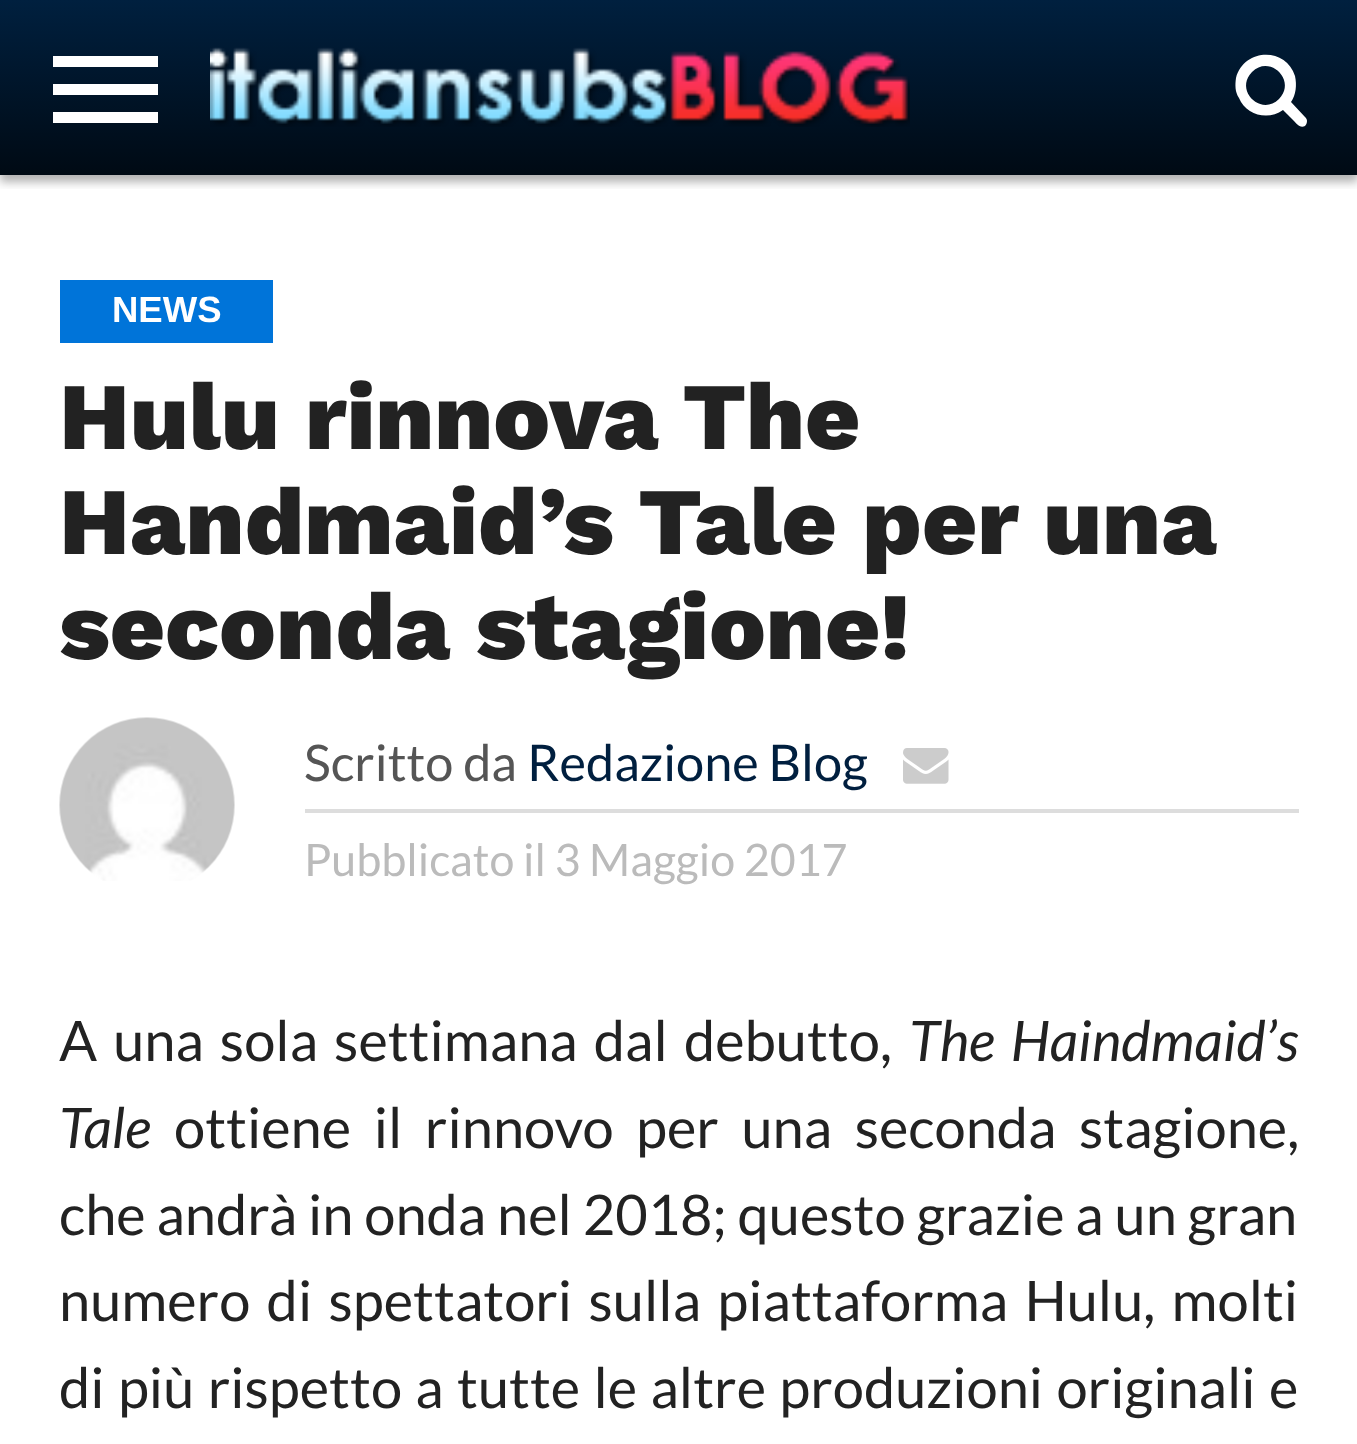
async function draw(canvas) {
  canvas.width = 1357;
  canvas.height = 1444;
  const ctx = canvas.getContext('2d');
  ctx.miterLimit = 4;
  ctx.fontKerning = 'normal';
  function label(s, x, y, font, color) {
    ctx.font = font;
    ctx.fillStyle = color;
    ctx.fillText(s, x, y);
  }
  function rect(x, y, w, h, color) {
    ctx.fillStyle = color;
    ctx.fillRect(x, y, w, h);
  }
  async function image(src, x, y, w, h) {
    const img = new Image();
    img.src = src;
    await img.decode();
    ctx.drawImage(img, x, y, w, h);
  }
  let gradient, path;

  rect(0, 0, 1357, 1444, '#fff');
  gradient = ctx.createLinearGradient(679, 0, 679, 175);
  gradient.addColorStop(0, '#00203f');
  gradient.addColorStop(1, '#000a14');
  ctx.fillStyle = gradient;
  ctx.fillRect(0, 0, 1357, 175);
  ctx.save();
  ctx.beginPath();
  ctx.rect(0, 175, 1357, 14);
  ctx.clip();
  ctx.fillStyle = '#0000004d';
  ctx.filter = 'blur(5px)';
  ctx.beginPath();
  ctx.rect(0, 7, 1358, 175);
  ctx.fill();
  ctx.filter = 'none';
  ctx.restore();
  rect(53, 56, 105, 11, '#fff');
  rect(53, 84, 105, 11, '#fff');
  rect(53, 112, 105, 11, '#fff');
  await image('assets/img1.png', 210, 47, 700, 80);
  path = new Path2D('M1279 99C1297 81 1270 54 1252 72C1234 90 1261 117 1279 99ZM1307 121C1307 123 1306 125 1305 126C1300 129 1296 123 1293 120L1283 110C1268 121 1246 115 1239 98C1235 92 1235 85 1236 78C1244 48 1286 47 1295 76C1297 85 1296 95 1291 102L1305 117C1306 118 1307 119 1307 121Z');
  ctx.fill(path);
  rect(60, 280, 213, 63, '#0074d9');
  label('NEWS', 112, 322, 'bold 36.5px Liberation Sans', '#fff');
  label('Hulu rinnova The', 59, 449, '800 95.25px Work Sans', '#222');
  label('Handmaid’s Tale per una', 59, 554, '800 95.25px Work Sans', '#222');
  label('seconda stagione!', 59, 659, '800 95.25px Work Sans', '#222');
  await image('assets/img2.png', 59, 717, 176, 164);
  rect(305, 809, 994, 4, '#ddd');
  label('Scritto da', 304, 781, '50.5px Lato', '#555');
  label('Redazione Blog', 527, 781, '50.5px Lato', '#001f3f');
  await image('assets/img3.png', 903, 748, 46, 36);
  label('Pubblicato il 3 Maggio 2017', 304, 876, '44.75px Lato', '#bbb');
  ctx.wordSpacing = '5.25px';
  label('A una sola settimana dal debutto,', 59, 1061, '56px Lato', '#222');
  ctx.wordSpacing = '5px';
  label('The Haindmaid’s', 909, 1061, 'italic 56px Lato', '#222');
  ctx.wordSpacing = '0px';
  label('Tale', 59, 1148, 'italic 56px Lato', '#222');
  ctx.wordSpacing = '11.75px';
  label('ottiene il rinnovo per una seconda stagione,', 174, 1148, '56px Lato', '#222');
  ctx.wordSpacing = '0px';
  label('che andrà in onda nel 2018; questo grazie a un gran', 59, 1235, '56px Lato', '#222');
  ctx.wordSpacing = '5.5px';
  label('numero di spettatori sulla piattaforma Hulu, molti', 59, 1321, '56px Lato', '#222');
  ctx.wordSpacing = '2.5px';
  label('di più rispetto a tutte le altre produzioni originali e', 59, 1408, '56px Lato', '#222');
}

draw(document.querySelector('canvas'));
